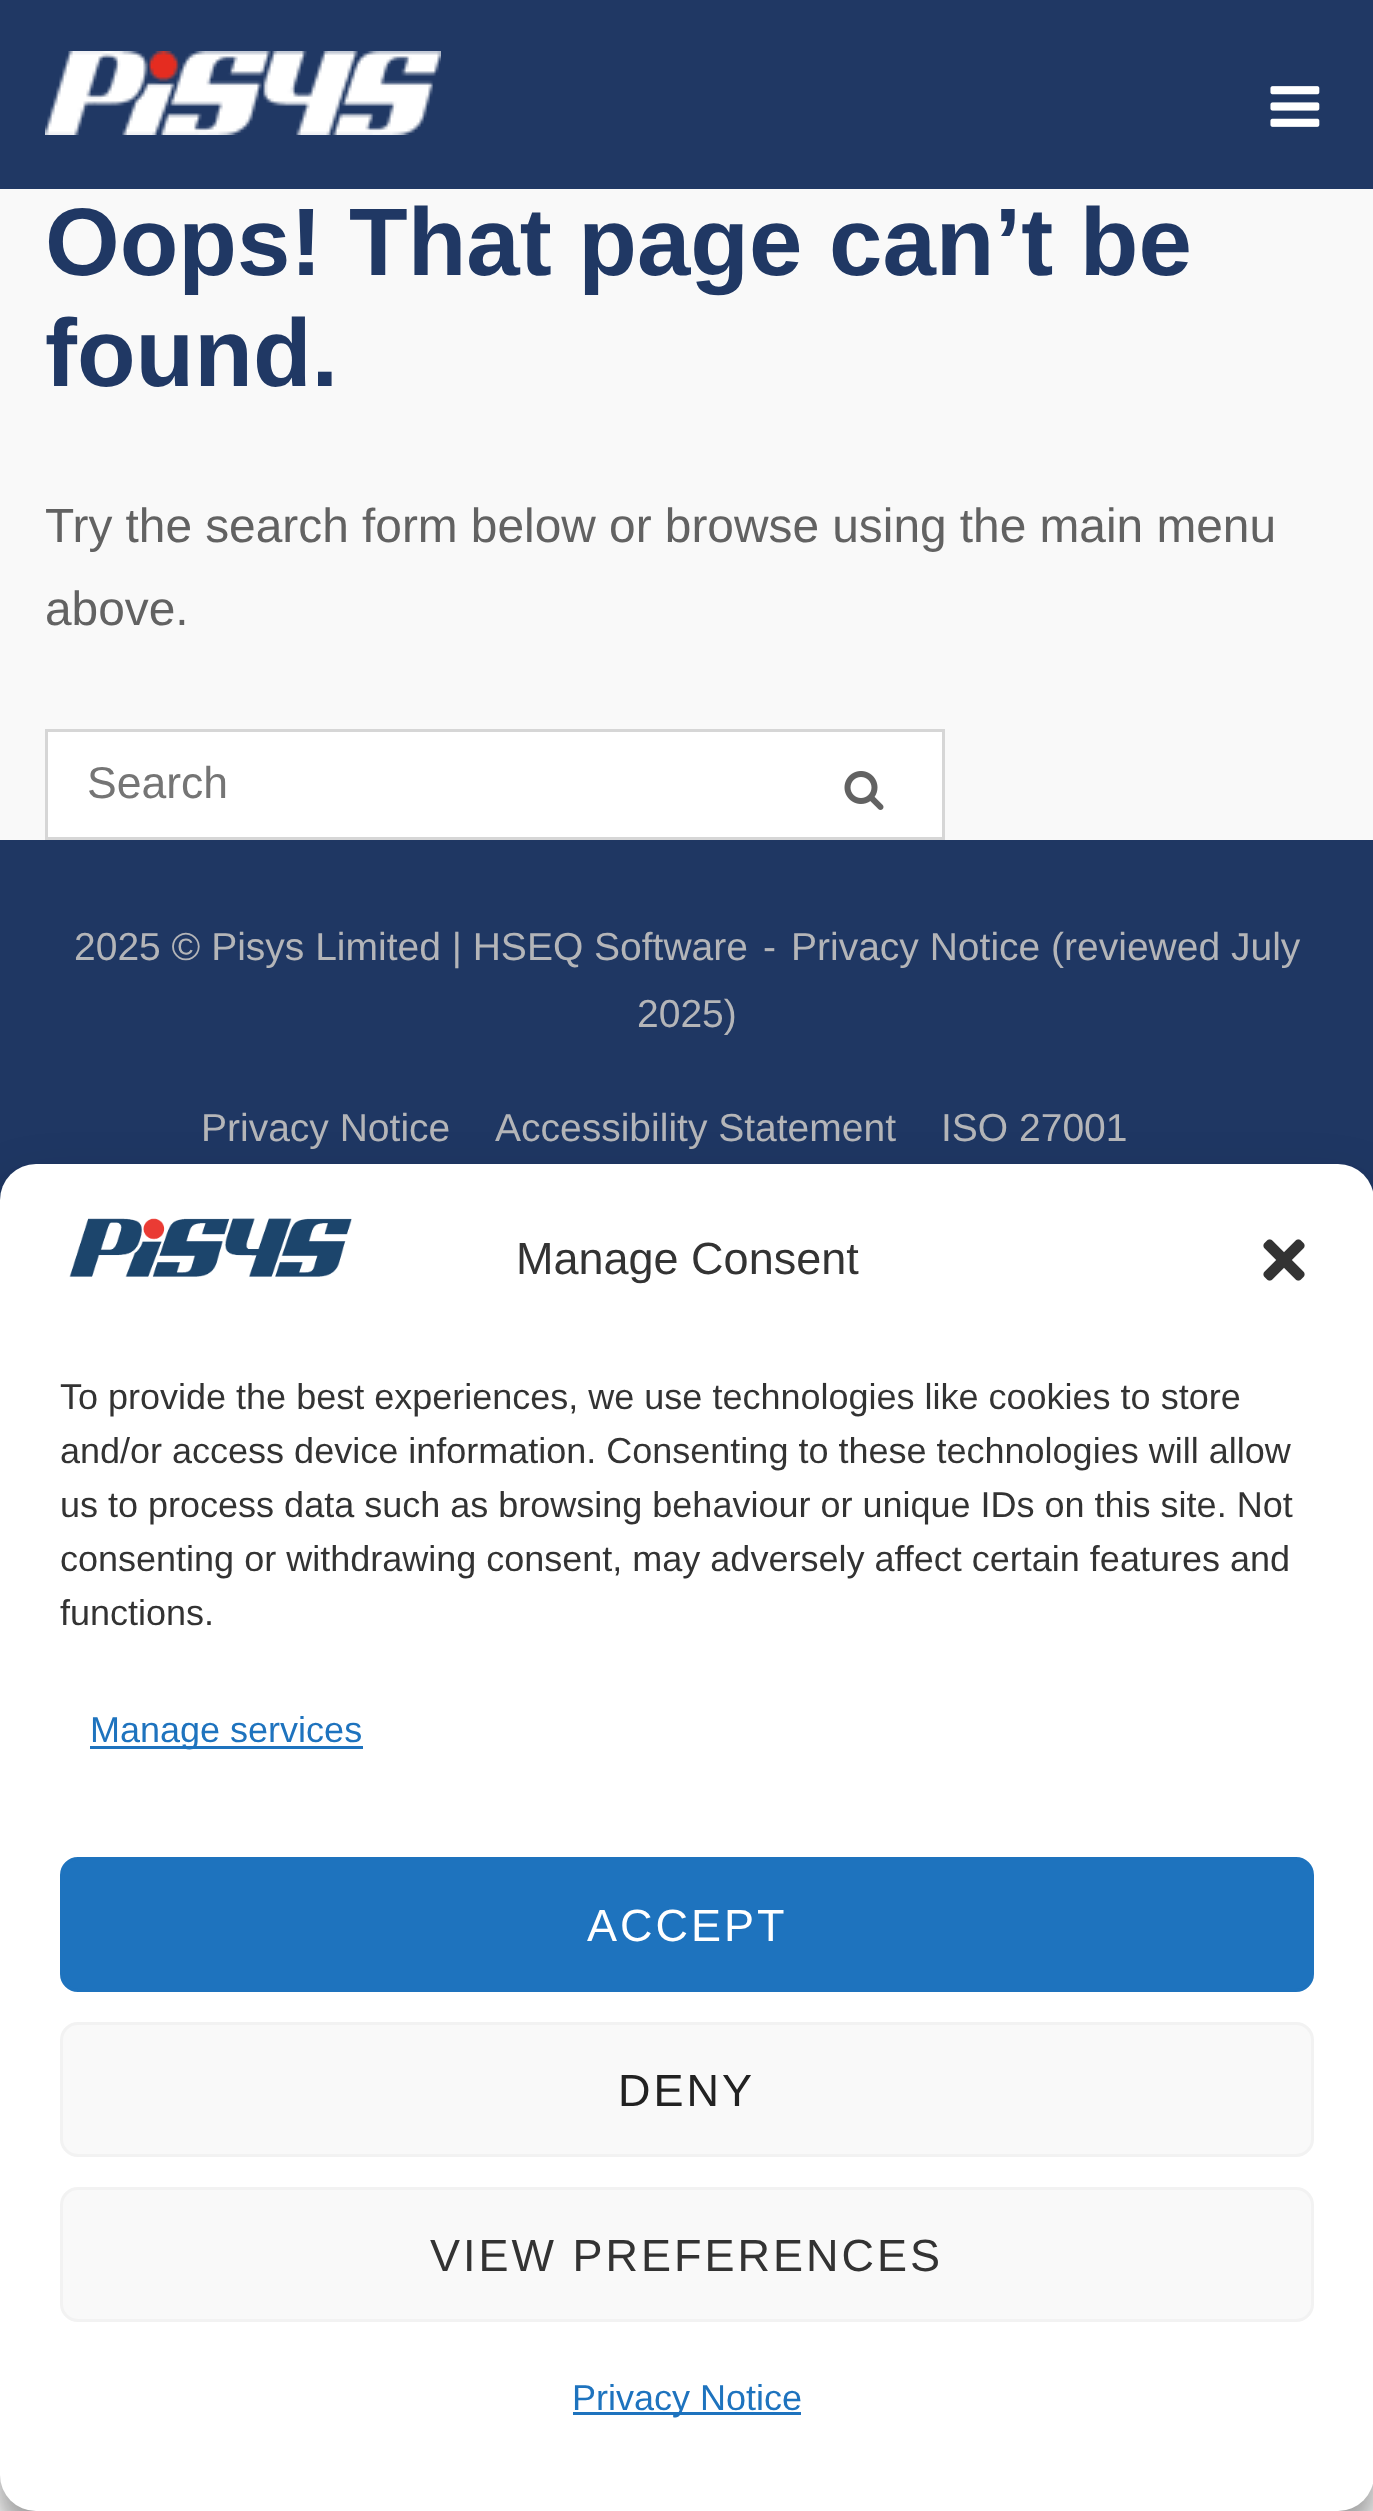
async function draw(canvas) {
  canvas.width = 1373;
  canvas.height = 2511;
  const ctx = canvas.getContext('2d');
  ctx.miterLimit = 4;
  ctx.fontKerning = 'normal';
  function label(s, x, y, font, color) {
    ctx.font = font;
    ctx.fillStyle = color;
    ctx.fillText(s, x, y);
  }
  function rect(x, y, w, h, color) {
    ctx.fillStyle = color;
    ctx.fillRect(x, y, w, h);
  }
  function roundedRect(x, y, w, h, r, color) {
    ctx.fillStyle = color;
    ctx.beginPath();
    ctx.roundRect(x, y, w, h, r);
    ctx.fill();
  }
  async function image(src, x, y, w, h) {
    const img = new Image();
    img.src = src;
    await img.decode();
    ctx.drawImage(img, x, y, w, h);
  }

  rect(0, 0, 1373, 2511, '#f9f9f9');
  rect(0, 0, 1373, 189, '#203864');
  await image('assets/img1.png', 45, 51, 396, 84);
  await image('assets/img2.png', 1270, 86, 50, 41);
  label('Oops! That page can’t be', 45, 275, 'bold 96px Liberation Sans', '#203864');
  label('found.', 45, 386, 'bold 96px Liberation Sans', '#203864');
  ctx.wordSpacing = '-0.1px';
  label('Try the search form below or browse using the main menu', 45, 542, '47.85px Liberation Sans', '#626262');
  ctx.wordSpacing = '0px';
  label('above.', 45, 625, '47.85px Liberation Sans', '#626262');
  ctx.fillStyle = '#fff';
  ctx.beginPath();
  ctx.rect(46.5, 730.5, 897, 108);
  ctx.fill();
  ctx.strokeStyle = '#d6d6d6';
  ctx.lineWidth = 3;
  ctx.stroke();
  label('Search', 87, 798, '44.5px Liberation Sans', '#757575');
  await image('assets/img3.png', 844, 771, 40, 39);
  rect(0, 840, 1373, 360, '#1f3763');
  label('2025 © Pisys Limited | HSEQ Software', 74, 960, '39px Liberation Sans', '#b4b5b8');
  label('-', 763, 960, '39px Liberation Sans', '#b4b5b8');
  label('Privacy Notice (reviewed July', 791, 960, '39px Liberation Sans', '#b4b5b8');
  label('2025)', 637, 1027, '39px Liberation Sans', '#b4b5b8');
  label('Privacy Notice', 201, 1141, '39px Liberation Sans', '#b4b5b8');
  label('Accessibility Statement', 495, 1141, '39px Liberation Sans', '#b4b5b8');
  label('ISO 27001', 941, 1141, '39px Liberation Sans', '#b4b5b8');
  ctx.fillStyle = '#0000003b';
  ctx.filter = 'blur(9px)';
  ctx.beginPath();
  ctx.roundRect(0, 1182, 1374, 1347, 36);
  ctx.fill();
  ctx.filter = 'none';
  ctx.fillStyle = '#00000030';
  ctx.filter = 'blur(30px)';
  ctx.beginPath();
  ctx.roundRect(0, 1194, 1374, 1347, 36);
  ctx.fill();
  ctx.filter = 'none';
  roundedRect(0, 1164, 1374, 1347, 36, '#fff');
  await image('assets/img4.png', 69, 1218, 283, 59);
  label('Manage Consent', 516, 1274, '45px Liberation Sans', '#333');
  await image('assets/img5.png', 1263, 1239, 42, 42);
  label('To provide the best experiences, we use technologies like cookies to store', 60, 1409, '36px Liberation Sans', '#333');
  label('and/or access device information. Consenting to these technologies will allow', 60, 1463, '36px Liberation Sans', '#333');
  label('us to process data such as browsing behaviour or unique IDs on this site. Not', 60, 1517, '36px Liberation Sans', '#333');
  label('consenting or withdrawing consent, may adversely affect certain features and', 60, 1571, '36px Liberation Sans', '#333');
  label('functions.', 60, 1625, '36px Liberation Sans', '#333');
  rect(90, 1746, 273, 3, '#1e73be');
  label('Manage services', 90, 1742, '36px Liberation Sans', '#1e73be');
  ctx.beginPath();
  ctx.roundRect(61.5, 1858.5, 1251, 132, 16.5);
  ctx.fill();
  ctx.strokeStyle = '#1e73be';
  ctx.stroke();
  ctx.letterSpacing = '3px';
  label('ACCEPT', 587, 1941, '45px Liberation Sans', '#fff');
  ctx.fillStyle = '#f9f9f9';
  ctx.beginPath();
  ctx.roundRect(61.5, 2023.5, 1251, 132, 16.5);
  ctx.fill();
  ctx.strokeStyle = '#f2f2f2';
  ctx.stroke();
  label('DENY', 618, 2106, '45px Liberation Sans', '#222');
  ctx.fillStyle = '#f9f9f9';
  ctx.beginPath();
  ctx.roundRect(61.5, 2188.5, 1251, 132, 16.5);
  ctx.fill();
  ctx.stroke();
  label('VIEW PREFERENCES', 430, 2271, '45px Liberation Sans', '#333');
  rect(573, 2412, 228, 3, '#1e73be');
  ctx.letterSpacing = '0px';
  label('Privacy Notice', 572, 2410, '36px Liberation Sans', '#1e73be');
}

draw(document.querySelector('canvas'));
